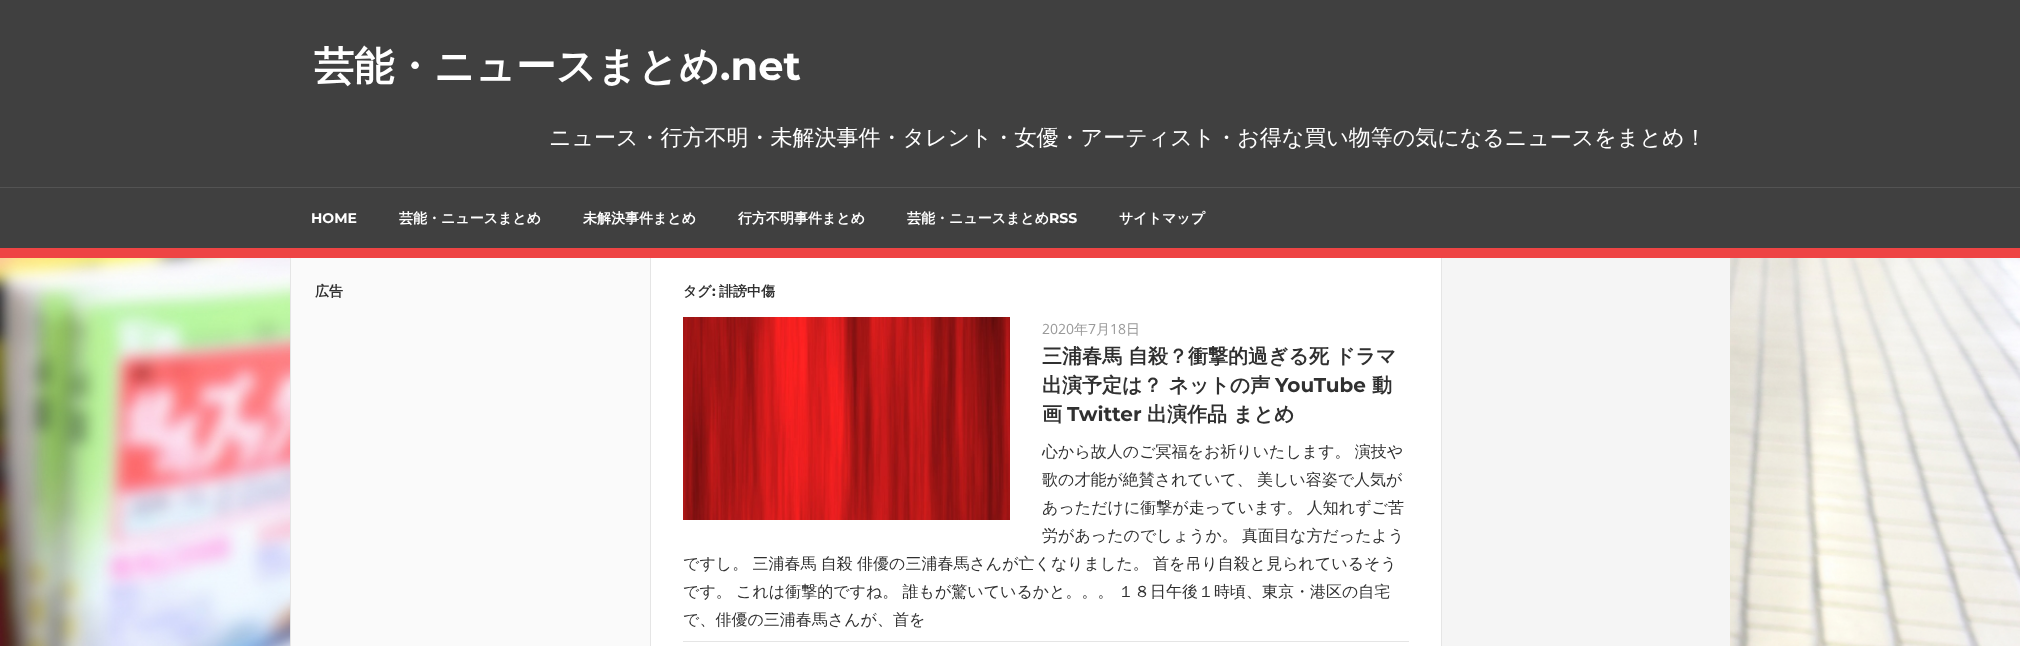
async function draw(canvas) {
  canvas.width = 2020;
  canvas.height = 646;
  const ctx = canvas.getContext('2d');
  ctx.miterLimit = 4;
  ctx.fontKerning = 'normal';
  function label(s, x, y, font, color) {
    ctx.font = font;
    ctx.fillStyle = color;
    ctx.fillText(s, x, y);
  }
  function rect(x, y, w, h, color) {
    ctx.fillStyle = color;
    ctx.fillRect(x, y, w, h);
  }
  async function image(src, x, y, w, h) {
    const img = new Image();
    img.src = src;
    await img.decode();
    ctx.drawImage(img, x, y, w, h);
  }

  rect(0, 0, 2020, 646, '#fff');
  await image('assets/img1.png', 0, 258, 2020, 388);
  rect(0, 0, 2020, 248, '#404040');
  rect(0, 248, 2020, 10, '#e44');
  label('芸能・ニュースまとめ', 314, 80, 'bold 40px WenQuanYi Zen Hei', '#fff');
  label('.net', 720, 80, 'bold 40px Montserrat', '#fff');
  label('ニュース・行方不明・未解決事件・タレント・女優・アーティスト・お得な買い物等の気になるニュースをまとめ！', 549, 145, '500 22px WenQuanYi Zen Hei', '#fff');
  rect(0, 187, 2020, 1, '#535353');
  label('HOME', 311, 223, 'bold 14px Montserrat', '#fff');
  label('芸能・ニュースまとめ', 399, 223, 'bold 14px WenQuanYi Zen Hei', '#fff');
  label('未解決事件まとめ', 583, 223, 'bold 14px WenQuanYi Zen Hei', '#fff');
  label('行方不明事件まとめ', 738, 223, 'bold 14px WenQuanYi Zen Hei', '#fff');
  label('芸能・ニュースまとめ', 907, 223, 'bold 14px WenQuanYi Zen Hei', '#fff');
  label('RSS', 1049, 223, 'bold 14px Montserrat', '#fff');
  label('サイトマップ', 1119, 223, 'bold 14px WenQuanYi Zen Hei', '#fff');
  rect(291, 258, 359, 388, '#fafafa');
  rect(290, 258, 1, 388, '#e5e5e5');
  label('広告', 315, 296, 'bold 14px WenQuanYi Zen Hei', '#303030');
  rect(651, 258, 790, 388, '#fff');
  rect(1441, 258, 1, 388, '#e5e5e5');
  rect(650, 258, 1, 388, '#e5e5e5');
  label('タグ', 683, 296, 'bold 14px WenQuanYi Zen Hei', '#303030');
  label(':', 712, 296, 'bold 14px Montserrat', '#303030');
  label('誹謗中傷', 719, 296, 'bold 14px WenQuanYi Zen Hei', '#303030');
  rect(683, 641, 726, 1, '#e5e5e5');
  await image('assets/img2.png', 683, 317, 327, 203);
  label('2020', 1042, 334, '14px Open Sans', '#999');
  label('年', 1074, 334, '500 14px WenQuanYi Zen Hei', '#999');
  label('7', 1088, 334, '14px Open Sans', '#999');
  label('月', 1096, 334, '500 14px WenQuanYi Zen Hei', '#999');
  label('18', 1110, 334, '14px Open Sans', '#999');
  label('日', 1126, 334, '500 14px WenQuanYi Zen Hei', '#999');
  label('三浦春馬 自殺？衝撃的過ぎる死 ドラマ', 1042, 363, 'bold 20px WenQuanYi Zen Hei', '#303030');
  label('出演予定は？ ネットの声', 1042, 392, 'bold 20px WenQuanYi Zen Hei', '#303030');
  label('YouTube', 1275, 392, 'bold 20px Montserrat', '#303030');
  label('動', 1372, 392, 'bold 20px WenQuanYi Zen Hei', '#303030');
  label('画', 1042, 421, 'bold 20px WenQuanYi Zen Hei', '#303030');
  label('Twitter', 1067, 421, 'bold 20px Montserrat', '#303030');
  label('出演作品 まとめ', 1147, 421, 'bold 20px WenQuanYi Zen Hei', '#303030');
  ctx.wordSpacing = '-0.5px';
  label('心から故人のご冥福をお祈りいたします。 演技や', 1042, 457, '500 16px WenQuanYi Zen Hei', '#303030');
  label('歌の才能が絶賛されていて、 美しい容姿で人気が', 1042, 485, '500 16px WenQuanYi Zen Hei', '#303030');
  label('あっただけに衝撃が走っています。 人知れずご苦', 1042, 513, '500 16px WenQuanYi Zen Hei', '#303030');
  label('労があったのでしょうか。 真面目な方だったよう', 1042, 541, '500 16px WenQuanYi Zen Hei', '#303030');
  label('ですし。 三浦春馬 自殺 俳優の三浦春馬さんが亡くなりました。 首を吊り自殺と見られているそう', 683, 569, '500 16px WenQuanYi Zen Hei', '#303030');
  label('です。 これは衝撃的ですね。 誰もが驚いているかと。。。 １８日午後１時頃、東京・港区の自宅', 683, 597, '500 16px WenQuanYi Zen Hei', '#303030');
  ctx.wordSpacing = '0px';
  label('で、俳優の三浦春馬さんが、首を', 683, 625, '500 16px WenQuanYi Zen Hei', '#303030');
  rect(1442, 258, 288, 388, '#f5f5f5');
}

draw(document.querySelector('canvas'));
